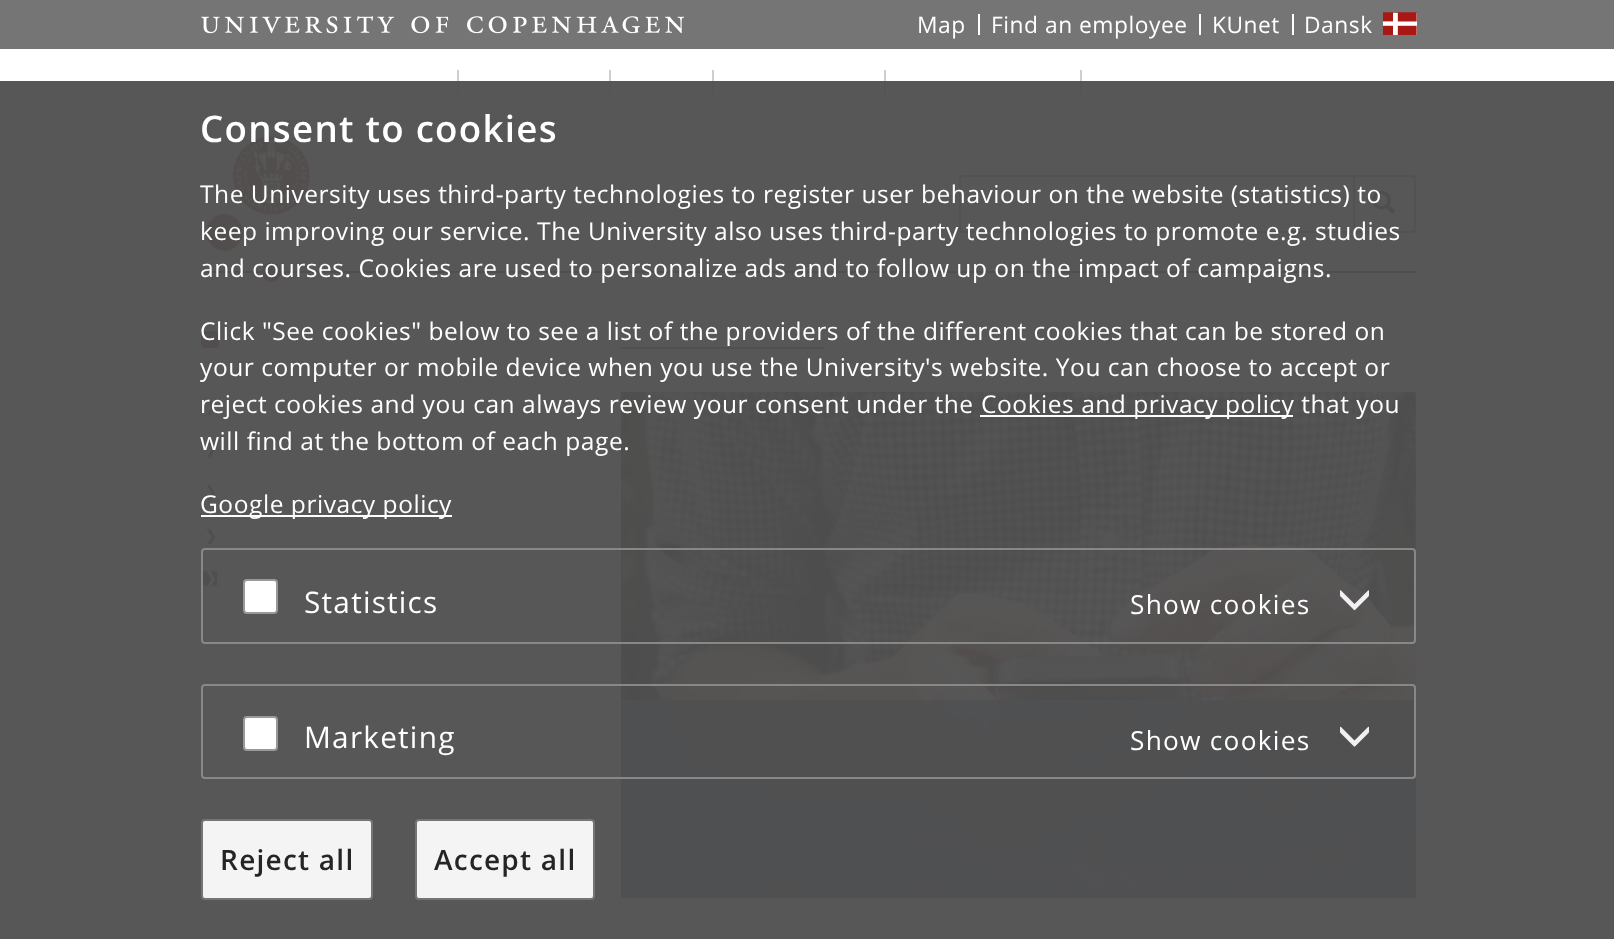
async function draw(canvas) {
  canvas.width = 1614;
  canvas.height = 939;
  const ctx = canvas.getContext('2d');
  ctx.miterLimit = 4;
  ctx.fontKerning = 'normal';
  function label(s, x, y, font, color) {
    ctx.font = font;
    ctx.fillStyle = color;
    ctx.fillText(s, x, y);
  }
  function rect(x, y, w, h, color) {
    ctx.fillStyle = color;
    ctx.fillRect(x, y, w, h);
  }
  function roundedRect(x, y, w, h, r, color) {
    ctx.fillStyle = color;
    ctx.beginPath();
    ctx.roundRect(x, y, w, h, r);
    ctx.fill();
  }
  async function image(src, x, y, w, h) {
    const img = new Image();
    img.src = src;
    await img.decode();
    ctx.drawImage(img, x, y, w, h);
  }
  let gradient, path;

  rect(0, 0, 1614, 939, '#f8f8f8');
  rect(0, 0, 1614, 49, '#757575');
  await image('assets/img1.png', 201, 16, 483, 18);
  ctx.letterSpacing = '0.53px';
  label('Map', 917, 33, '22.75px Open Sans', '#fff');
  rect(978, 14, 2, 21, '#fff');
  label('Find an employee', 991, 33, '22.75px Open Sans', '#fff');
  rect(1199, 14, 2, 21, '#fff');
  label('KUnet', 1212, 33, '22.75px Open Sans', '#fff');
  rect(1292, 14, 2, 21, '#fff');
  label('Dansk', 1304, 33, '22.75px Open Sans', '#fff');
  await image('assets/img2.png', 1383, 12, 34, 23);
  rect(0, 49, 1614, 70, '#fff');
  rect(0, 119, 1614, 2, '#ccc');
  rect(457, 70, 2, 28, '#cfcfcf');
  rect(609, 70, 2, 28, '#cfcfcf');
  rect(712, 70, 2, 28, '#cfcfcf');
  rect(884, 70, 2, 28, '#cfcfcf');
  rect(1080, 70, 2, 28, '#cfcfcf');
  rect(156, 121, 1305, 818, '#fff');
  rect(201, 271, 1215, 2, '#901a1e');
  await image('assets/img5.png', 206, 136, 104, 146);
  ctx.fillStyle = '#ececec';
  path = new Path2D('M962 178H1354V231H1355V177H963L961 178Z');
  ctx.fill(path);
  ctx.beginPath();
  ctx.roundRect(960, 176, 395, 56, [3, 0, 0, 3]);
  ctx.strokeStyle = '#757575';
  ctx.lineWidth = 2;
  ctx.stroke();
  gradient = ctx.createLinearGradient(1384, 177, 1384, 231);
  gradient.addColorStop(0, '#eee');
  gradient.addColorStop(1, '#f2f2f2');
  ctx.fillStyle = gradient;
  ctx.fillRect(1355, 177, 61, 54);
  ctx.beginPath();
  ctx.roundRect(1354, 176, 61, 56, [0, 3, 3, 0]);
  ctx.stroke();
  await image('assets/img6.png', 1372, 190, 23, 24);
  roundedRect(201, 331, 18, 17, 4, '#901a1e');
  await image('assets/img7.png', 206, 399, 10, 16);
  ctx.beginPath();
  ctx.roundRect(202, 398, 16, 18, 3);
  ctx.strokeStyle = '#d6d6d6';
  ctx.stroke();
  await image('assets/img7.png', 206, 441, 10, 16);
  ctx.beginPath();
  ctx.roundRect(202, 440, 16, 18, 3);
  ctx.stroke();
  await image('assets/img8.png', 206, 485, 10, 15);
  ctx.beginPath();
  ctx.roundRect(202, 484, 16, 17, 3);
  ctx.stroke();
  await image('assets/img9.png', 206, 529, 10, 15);
  ctx.beginPath();
  ctx.roundRect(202, 528, 16, 17, 3);
  ctx.stroke();
  rect(203, 571, 16, 15, '#901a1e');
  await image('assets/img10.png', 206, 571, 10, 15);
  ctx.beginPath();
  ctx.roundRect(202, 570, 16, 17, 3);
  ctx.stroke();
  rect(621, 347, 203, 2, '#2c6694');
  await image('assets/img11.png', 621, 392, 795, 506);
  rect(621, 700, 795, 198, '#425570ed');
  rect(0, 81, 1614, 858, '#505050f5');
  ctx.letterSpacing = '1.25px';
  label('Consent to cookies', 200, 142, '600 36.75px Open Sans', '#fff');
  ctx.letterSpacing = '0.53px';
  label('The University uses third-party technologies to register user behaviour on the website (statistics) to', 200, 203, '24.5px Open Sans', '#fff');
  label('keep improving our service. The University also uses third-party technologies to promote e.g. studies', 200, 240, '24.5px Open Sans', '#fff');
  label('and courses. Cookies are used to personalize ads and to follow up on the impact of campaigns.', 200, 277, '24.5px Open Sans', '#fff');
  label('Click "See cookies" below to see a list of the providers of the different cookies that can be stored on', 200, 340, '24.5px Open Sans', '#fff');
  label('your computer or mobile device when you use the University\'s website. You can choose to accept or', 200, 376, '24.5px Open Sans', '#fff');
  label('reject cookies and you can always review your consent under the', 200, 413, '24.5px Open Sans', '#fff');
  rect(980, 415, 313, 2, '#fff');
  label('Cookies and privacy policy that you', 981, 413, '24.5px Open Sans', '#fff');
  label('will find at the bottom of each page.', 200, 450, '24.5px Open Sans', '#fff');
  rect(201, 515, 251, 2, '#fff');
  label('Google privacy policy', 200, 513, '24.5px Open Sans', '#fff');
  ctx.beginPath();
  ctx.roundRect(202, 549, 1213, 94, 3);
  ctx.strokeStyle = '#888';
  ctx.stroke();
  ctx.beginPath();
  ctx.roundRect(244, 580, 33, 33, 3);
  ctx.fill();
  ctx.strokeStyle = '#999';
  ctx.stroke();
  ctx.letterSpacing = '1.25px';
  label('Statistics', 304, 613, '29.75px Open Sans', '#fff');
  label('Show cookies', 1130, 614, '26.25px Open Sans', '#fff');
  await image('assets/img3.png', 1340, 590, 29, 21);
  ctx.beginPath();
  ctx.roundRect(202, 685, 1213, 93, 3);
  ctx.strokeStyle = '#888';
  ctx.stroke();
  ctx.beginPath();
  ctx.roundRect(244, 717, 33, 33, 3);
  ctx.fill();
  ctx.strokeStyle = '#999';
  ctx.stroke();
  label('Marketing', 304, 748, '29.75px Open Sans', '#fff');
  label('Show cookies', 1130, 750, '26.25px Open Sans', '#fff');
  await image('assets/img4.png', 1340, 726, 29, 21);
  ctx.fillStyle = '#f4f4f4';
  ctx.beginPath();
  ctx.roundRect(202, 820, 170, 79, 3);
  ctx.fill();
  ctx.strokeStyle = '#757575';
  ctx.stroke();
  label('Reject all', 220, 870, '600 28px Open Sans', '#252525');
  ctx.fillStyle = '#f4f4f4';
  ctx.beginPath();
  ctx.roundRect(416, 820, 178, 79, 3);
  ctx.fill();
  ctx.stroke();
  label('Accept all', 434, 870, '600 28px Open Sans', '#252525');
}

draw(document.querySelector('canvas'));
